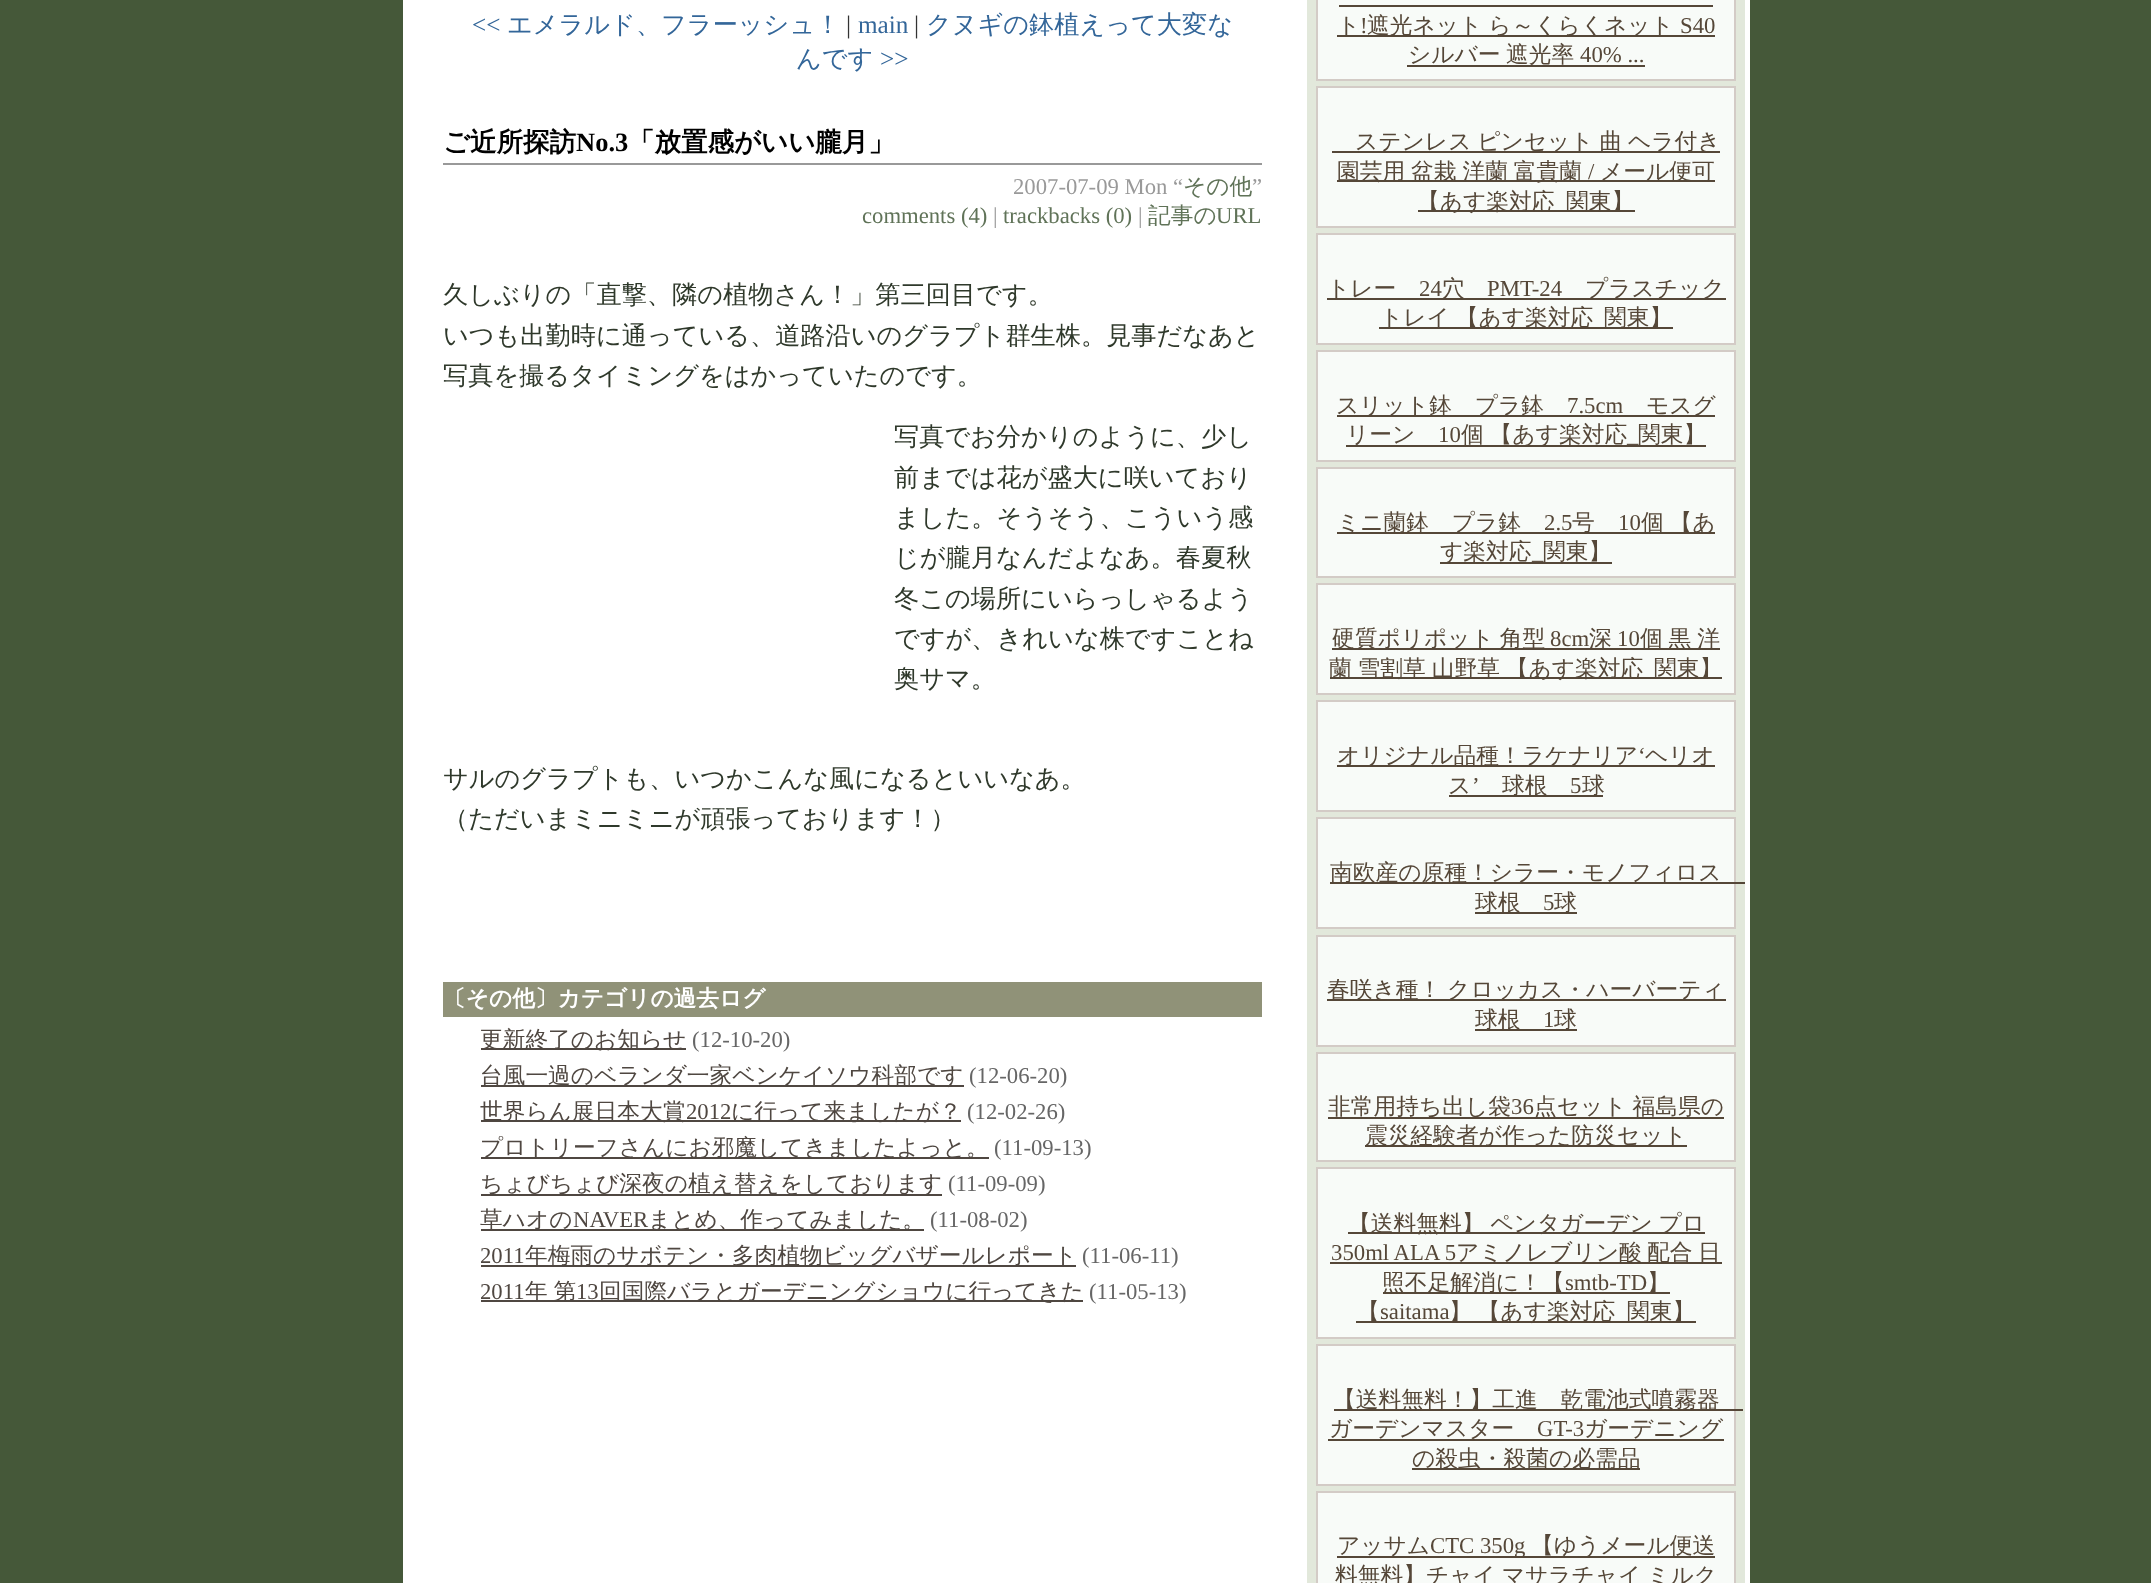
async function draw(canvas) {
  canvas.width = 2151;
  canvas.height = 1583;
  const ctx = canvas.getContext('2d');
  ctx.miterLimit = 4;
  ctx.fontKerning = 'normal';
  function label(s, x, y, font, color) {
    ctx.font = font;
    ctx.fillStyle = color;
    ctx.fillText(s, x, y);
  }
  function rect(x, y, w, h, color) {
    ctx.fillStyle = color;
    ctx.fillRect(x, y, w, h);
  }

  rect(0, 0, 2151, 1583, '#455839');
  rect(403, 0, 1347, 1583, '#fff');
  label('<<', 472, 33, '25.2px Liberation Serif', '#369');
  label('エメラルド、フラーッシュ！', 507, 33, '500 25.2px WenQuanYi Zen Hei', '#369');
  label('|', 846, 33, '25.2px Liberation Serif', '#333');
  label('main', 858, 33, '25.2px Liberation Serif', '#369');
  label('|', 914, 33, '25.2px Liberation Serif', '#333');
  label('クヌギの鉢植えって大変な', 926, 33, '500 25.2px WenQuanYi Zen Hei', '#369');
  label('んです', 796, 67, '500 25.2px WenQuanYi Zen Hei', '#369');
  label('>>', 880, 67, '25.2px Liberation Serif', '#369');
  rect(443, 163, 819, 2, '#999');
  label('ご近所探訪', 443, 151, 'bold 26.5px WenQuanYi Zen Hei', '#000');
  label('No.3', 576, 151, 'bold 26.5px Liberation Serif', '#000');
  label('「放置感がいい朧月」', 628, 151, 'bold 26.5px WenQuanYi Zen Hei', '#000');
  label('2007-07-09 Mon “', 1013, 194, '22.7px Liberation Serif', '#999');
  label('その他', 1183, 194, '500 22.7px WenQuanYi Zen Hei', '#607358');
  label('”', 1252, 194, '22.7px Liberation Serif', '#999');
  label('comments (4)', 862, 223, '22.7px Liberation Serif', '#607358');
  label('|', 993, 223, '22.7px Liberation Serif', '#999');
  label('trackbacks (0)', 1003, 223, '22.7px Liberation Serif', '#607358');
  label('|', 1138, 223, '22.7px Liberation Serif', '#999');
  label('記事の', 1148, 223, '500 22.7px WenQuanYi Zen Hei', '#607358');
  label('URL', 1216, 223, '22.7px Liberation Serif', '#607358');
  label('久しぶりの「直撃、隣の植物さん！」第三回目です。', 443, 303, '500 25.2px WenQuanYi Zen Hei', '#2f392b');
  label('いつも出勤時に通っている、道路沿いのグラプト群生株。見事だなあと', 443, 344, '500 25.2px WenQuanYi Zen Hei', '#2f392b');
  label('写真を撮るタイミングをはかっていたのです。', 443, 384, '500 25.2px WenQuanYi Zen Hei', '#2f392b');
  label('写真でお分かりのように、少し', 894, 445, '500 25.2px WenQuanYi Zen Hei', '#2f392b');
  label('前までは花が盛大に咲いており', 894, 486, '500 25.2px WenQuanYi Zen Hei', '#2f392b');
  label('ました。そうそう、こういう感', 894, 526, '500 25.2px WenQuanYi Zen Hei', '#2f392b');
  label('じが朧月なんだよなあ。春夏秋', 894, 566, '500 25.2px WenQuanYi Zen Hei', '#2f392b');
  label('冬この場所にいらっしゃるよう', 894, 607, '500 25.2px WenQuanYi Zen Hei', '#2f392b');
  label('ですが、きれいな株ですことね', 894, 647, '500 25.2px WenQuanYi Zen Hei', '#2f392b');
  label('奥サマ。', 894, 687, '500 25.2px WenQuanYi Zen Hei', '#2f392b');
  label('サルのグラプトも、いつかこんな風になるといいなあ。', 443, 787, '500 25.2px WenQuanYi Zen Hei', '#2f392b');
  label('（ただいまミニミニが頑張っております！）', 443, 827, '500 25.2px WenQuanYi Zen Hei', '#2f392b');
  rect(443, 982, 819, 35, '#909278');
  label('〔その他〕カテゴリの過去ログ', 443, 1006, 'bold 22.7px WenQuanYi Zen Hei', '#fff');
  rect(481, 1048, 205, 2, '#4f4741');
  label('更新終了のお知らせ', 480, 1047, '500 22.7px WenQuanYi Zen Hei', '#4f4741');
  label('(12-10-20)', 692, 1047, '22.7px Liberation Serif', '#666');
  rect(481, 1085, 483, 2, '#4f4741');
  label('台風一過のベランダ一家ベンケイソウ科部です', 480, 1083, '500 22.7px WenQuanYi Zen Hei', '#4f4741');
  label('(12-06-20)', 969, 1083, '22.7px Liberation Serif', '#666');
  rect(481, 1120, 480, 2, '#4f4741');
  label('世界らん展日本大賞', 480, 1119, '500 22.7px WenQuanYi Zen Hei', '#4f4741');
  label('2012', 686, 1119, '22.7px Liberation Serif', '#4f4741');
  label('に行って来ましたが？', 731, 1119, '500 22.7px WenQuanYi Zen Hei', '#4f4741');
  label('(12-02-26)', 967, 1119, '22.7px Liberation Serif', '#666');
  rect(481, 1157, 508, 2, '#4f4741');
  label('プロトリーフさんにお邪魔してきましたよっと。', 480, 1155, '500 22.7px WenQuanYi Zen Hei', '#4f4741');
  label('(11-09-13)', 994, 1155, '22.7px Liberation Serif', '#666');
  rect(481, 1194, 461, 2, '#4f4741');
  label('ちょびちょび深夜の植え替えをしております', 480, 1191, '500 22.7px WenQuanYi Zen Hei', '#4f4741');
  label('(11-09-09)', 948, 1191, '22.7px Liberation Serif', '#666');
  rect(481, 1229, 443, 2, '#4f4741');
  label('草ハオの', 480, 1227, '500 22.7px WenQuanYi Zen Hei', '#4f4741');
  label('NAVER', 573, 1227, '22.7px Liberation Serif', '#4f4741');
  label('まとめ、作ってみました。', 648, 1227, '500 22.7px WenQuanYi Zen Hei', '#4f4741');
  label('(11-08-02)', 930, 1227, '22.7px Liberation Serif', '#666');
  label('2011', 480, 1263, '22.7px Liberation Serif', '#4f4741');
  rect(481, 1265, 595, 2, '#4f4741');
  label('年梅雨のサボテン・多肉植物ビッグバザールレポート', 525, 1263, '500 22.7px WenQuanYi Zen Hei', '#4f4741');
  label('(11-06-11)', 1082, 1263, '22.7px Liberation Serif', '#666');
  label('2011', 480, 1299, '22.7px Liberation Serif', '#4f4741');
  rect(481, 1300, 602, 2, '#4f4741');
  ctx.wordSpacing = '-1px';
  label('年 第', 525, 1299, '500 22.7px WenQuanYi Zen Hei', '#4f4741');
  ctx.wordSpacing = '0px';
  label('13', 576, 1299, '22.7px Liberation Serif', '#4f4741');
  label('回国際バラとガーデニングショウに行ってきた', 599, 1299, '500 22.7px WenQuanYi Zen Hei', '#4f4741');
  label('(11-05-13)', 1089, 1299, '22.7px Liberation Serif', '#666');
  rect(1307, 0, 438, 1583, '#e2e8db');
  ctx.fillStyle = '#f8fbf8';
  ctx.beginPath();
  ctx.rect(1317, -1, 418, 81);
  ctx.fill();
  ctx.strokeStyle = '#d3cbc6';
  ctx.lineWidth = 2;
  ctx.stroke();
  rect(1337, 35, 378, 2, '#554738');
  label('ト', 1337, 33, '500 22.75px WenQuanYi Zen Hei', '#554738');
  label('!', 1360, 33, '22.75px Liberation Serif', '#554738');
  ctx.wordSpacing = '-1px';
  label('遮光ネット ら～くらくネット', 1367, 33, '500 22.75px WenQuanYi Zen Hei', '#554738');
  rect(1339, 5, 374, 2, '#554738');
  ctx.wordSpacing = '0px';
  label('S40', 1680, 33, '22.75px Liberation Serif', '#554738');
  label('シルバー', 1408, 62, '500 22.75px WenQuanYi Zen Hei', '#554738');
  rect(1407, 65, 238, 2, '#554738');
  label('遮光率', 1506, 62, '500 22.75px WenQuanYi Zen Hei', '#554738');
  label('40% ...', 1580, 62, '22.75px Liberation Serif', '#554738');
  ctx.fillStyle = '#f8fbf8';
  ctx.beginPath();
  ctx.rect(1317, 87, 418, 140);
  ctx.fill();
  ctx.stroke();
  rect(1332, 151, 388, 2, '#554738');
  ctx.wordSpacing = '-1px';
  label('ステンレス ピンセット 曲 ヘラ付き', 1355, 149, '500 22.75px WenQuanYi Zen Hei', '#554738');
  rect(1337, 180, 378, 2, '#554738');
  label('園芸用 盆栽 洋蘭 富貴蘭', 1337, 179, '500 22.75px WenQuanYi Zen Hei', '#554738');
  ctx.wordSpacing = '0px';
  label('/', 1588, 179, '22.75px Liberation Serif', '#554738');
  label('メール便可', 1600, 179, '500 22.75px WenQuanYi Zen Hei', '#554738');
  rect(1418, 210, 217, 2, '#554738');
  label('【あす楽対応', 1417, 209, '500 22.75px WenQuanYi Zen Hei', '#554738');
  label('関東】', 1566, 209, '500 22.75px WenQuanYi Zen Hei', '#554738');
  ctx.fillStyle = '#f8fbf8';
  ctx.beginPath();
  ctx.rect(1317, 234, 418, 110);
  ctx.fill();
  ctx.stroke();
  rect(1327, 298, 399, 2, '#554738');
  label('トレー', 1327, 296, '500 22.75px WenQuanYi Zen Hei', '#554738');
  label('24', 1419, 296, '22.75px Liberation Serif', '#554738');
  label('穴', 1442, 296, '500 22.75px WenQuanYi Zen Hei', '#554738');
  label('PMT-24', 1487, 296, '22.75px Liberation Serif', '#554738');
  label('プラスチック', 1585, 296, '500 22.75px WenQuanYi Zen Hei', '#554738');
  rect(1379, 327, 294, 2, '#554738');
  ctx.wordSpacing = '-1px';
  label('トレイ 【あす楽対応', 1380, 325, '500 22.75px WenQuanYi Zen Hei', '#554738');
  ctx.wordSpacing = '0px';
  label('関東】', 1604, 325, '500 22.75px WenQuanYi Zen Hei', '#554738');
  ctx.fillStyle = '#f8fbf8';
  ctx.beginPath();
  ctx.rect(1317, 351, 418, 110);
  ctx.fill();
  ctx.stroke();
  rect(1337, 415, 378, 2, '#554738');
  label('スリット鉢　プラ鉢', 1336, 413, '500 22.75px WenQuanYi Zen Hei', '#554738');
  label('7.5cm', 1567, 413, '22.75px Liberation Serif', '#554738');
  label('モスグ', 1646, 413, '500 22.75px WenQuanYi Zen Hei', '#554738');
  rect(1346, 445, 360, 2, '#554738');
  label('リーン', 1346, 442, '500 22.75px WenQuanYi Zen Hei', '#554738');
  label('10', 1438, 442, '22.75px Liberation Serif', '#554738');
  ctx.wordSpacing = '-1px';
  label('個 【あす楽対応', 1461, 442, '500 22.75px WenQuanYi Zen Hei', '#554738');
  ctx.wordSpacing = '0px';
  label('_', 1627, 442, '22.75px Liberation Serif', '#554738');
  label('関東】', 1638, 442, '500 22.75px WenQuanYi Zen Hei', '#554738');
  ctx.fillStyle = '#f8fbf8';
  ctx.beginPath();
  ctx.rect(1317, 468, 418, 109);
  ctx.fill();
  ctx.stroke();
  rect(1337, 532, 378, 2, '#554738');
  label('ミニ蘭鉢　プラ鉢', 1337, 530, '500 22.75px WenQuanYi Zen Hei', '#554738');
  label('2.5', 1544, 530, '22.75px Liberation Serif', '#554738');
  label('号', 1572, 530, '500 22.75px WenQuanYi Zen Hei', '#554738');
  label('10', 1618, 530, '22.75px Liberation Serif', '#554738');
  ctx.wordSpacing = '-1px';
  label('個 【あ', 1641, 530, '500 22.75px WenQuanYi Zen Hei', '#554738');
  rect(1440, 562, 172, 2, '#554738');
  ctx.wordSpacing = '0px';
  label('す楽対応', 1440, 559, '500 22.75px WenQuanYi Zen Hei', '#554738');
  label('_', 1532, 559, '22.75px Liberation Serif', '#554738');
  label('関東】', 1543, 559, '500 22.75px WenQuanYi Zen Hei', '#554738');
  ctx.fillStyle = '#f8fbf8';
  ctx.beginPath();
  ctx.rect(1317, 584, 418, 110);
  ctx.fill();
  ctx.stroke();
  rect(1332, 648, 388, 2, '#554738');
  ctx.wordSpacing = '-1px';
  label('硬質ポリポット 角型', 1332, 646, '500 22.75px WenQuanYi Zen Hei', '#554738');
  ctx.wordSpacing = '0px';
  label('8cm', 1550, 646, '22.75px Liberation Serif', '#554738');
  label('深', 1589, 646, '500 22.75px WenQuanYi Zen Hei', '#554738');
  label('10', 1617, 646, '22.75px Liberation Serif', '#554738');
  ctx.wordSpacing = '-1px';
  label('個 黒 洋', 1640, 646, '500 22.75px WenQuanYi Zen Hei', '#554738');
  rect(1330, 677, 392, 2, '#554738');
  label('蘭 雪割草 山野草 【あす楽対応', 1329, 676, '500 22.75px WenQuanYi Zen Hei', '#554738');
  ctx.wordSpacing = '0px';
  label('関東】', 1654, 676, '500 22.75px WenQuanYi Zen Hei', '#554738');
  ctx.fillStyle = '#f8fbf8';
  ctx.beginPath();
  ctx.rect(1317, 701, 418, 110);
  ctx.fill();
  ctx.stroke();
  rect(1337, 765, 378, 2, '#554738');
  label('オリジナル品種！ラケナリア', 1337, 763, '500 22.75px WenQuanYi Zen Hei', '#554738');
  label('‘', 1638, 763, '22.75px Liberation Serif', '#554738');
  label('ヘリオ', 1645, 763, '500 22.75px WenQuanYi Zen Hei', '#554738');
  label('ス', 1448, 793, '500 22.75px WenQuanYi Zen Hei', '#554738');
  rect(1449, 795, 154, 2, '#554738');
  label('’', 1472, 793, '22.75px Liberation Serif', '#554738');
  label('球根', 1502, 793, '500 22.75px WenQuanYi Zen Hei', '#554738');
  label('5', 1570, 793, '22.75px Liberation Serif', '#554738');
  label('球', 1582, 793, '500 22.75px WenQuanYi Zen Hei', '#554738');
  ctx.fillStyle = '#f8fbf8';
  ctx.beginPath();
  ctx.rect(1317, 818, 418, 110);
  ctx.fill();
  ctx.stroke();
  rect(1330, 882, 415, 2, '#554738');
  label('南欧産の原種！シラー・モノフィロス', 1330, 880, '500 22.75px WenQuanYi Zen Hei', '#554738');
  rect(1475, 912, 102, 2, '#554738');
  label('球根', 1475, 910, '500 22.75px WenQuanYi Zen Hei', '#554738');
  label('5', 1543, 910, '22.75px Liberation Serif', '#554738');
  label('球', 1554, 910, '500 22.75px WenQuanYi Zen Hei', '#554738');
  ctx.fillStyle = '#f8fbf8';
  ctx.beginPath();
  ctx.rect(1317, 936, 418, 110);
  ctx.fill();
  ctx.stroke();
  rect(1327, 999, 399, 2, '#554738');
  ctx.wordSpacing = '-1px';
  label('春咲き種！ クロッカス・ハーバーティ', 1327, 997, '500 22.75px WenQuanYi Zen Hei', '#554738');
  rect(1475, 1029, 102, 2, '#554738');
  ctx.wordSpacing = '0px';
  label('球根', 1475, 1027, '500 22.75px WenQuanYi Zen Hei', '#554738');
  label('1', 1543, 1027, '22.75px Liberation Serif', '#554738');
  label('球', 1554, 1027, '500 22.75px WenQuanYi Zen Hei', '#554738');
  ctx.fillStyle = '#f8fbf8';
  ctx.beginPath();
  ctx.rect(1317, 1053, 418, 108);
  ctx.fill();
  ctx.stroke();
  rect(1328, 1117, 396, 2, '#554738');
  label('非常用持ち出し袋', 1328, 1114, '500 22.75px WenQuanYi Zen Hei', '#554738');
  label('36', 1511, 1114, '22.75px Liberation Serif', '#554738');
  ctx.wordSpacing = '-1px';
  label('点セット 福島県の', 1534, 1114, '500 22.75px WenQuanYi Zen Hei', '#554738');
  rect(1365, 1145, 322, 2, '#554738');
  ctx.wordSpacing = '0px';
  label('震災経験者が作った防災セット', 1365, 1143, '500 22.75px WenQuanYi Zen Hei', '#554738');
  ctx.fillStyle = '#f8fbf8';
  ctx.beginPath();
  ctx.rect(1317, 1168, 418, 170);
  ctx.fill();
  ctx.stroke();
  rect(1348, 1232, 357, 2, '#554738');
  ctx.wordSpacing = '-1px';
  label('【送料無料】 ペンタガーデン プロ', 1348, 1231, '500 22.75px WenQuanYi Zen Hei', '#554738');
  ctx.wordSpacing = '0px';
  label('350ml ALA 5', 1331, 1260, '22.75px Liberation Serif', '#554738');
  rect(1330, 1262, 392, 2, '#554738');
  label('アミノレブリン酸', 1456, 1260, '500 22.75px WenQuanYi Zen Hei', '#554738');
  label('配合', 1647, 1260, '500 22.75px WenQuanYi Zen Hei', '#554738');
  label('日', 1698, 1260, '500 22.75px WenQuanYi Zen Hei', '#554738');
  rect(1383, 1292, 287, 2, '#554738');
  label('照不足解消に！【', 1382, 1290, '500 22.75px WenQuanYi Zen Hei', '#554738');
  label('smtb-TD', 1565, 1290, '22.75px Liberation Serif', '#554738');
  label('】', 1647, 1290, '500 22.75px WenQuanYi Zen Hei', '#554738');
  rect(1356, 1321, 340, 2, '#554738');
  label('【', 1357, 1319, '500 22.75px WenQuanYi Zen Hei', '#554738');
  label('saitama', 1380, 1319, '22.75px Liberation Serif', '#554738');
  ctx.wordSpacing = '-1px';
  label('】 【あす楽対応', 1449, 1319, '500 22.75px WenQuanYi Zen Hei', '#554738');
  ctx.wordSpacing = '0px';
  label('関東】', 1627, 1319, '500 22.75px WenQuanYi Zen Hei', '#554738');
  ctx.fillStyle = '#f8fbf8';
  ctx.beginPath();
  ctx.rect(1317, 1345, 418, 140);
  ctx.fill();
  ctx.stroke();
  rect(1334, 1409, 409, 2, '#554738');
  label('【送料無料！】工進　乾電池式噴霧器', 1333, 1407, '500 22.75px WenQuanYi Zen Hei', '#554738');
  rect(1328, 1439, 396, 2, '#554738');
  label('ガーデンマスター', 1329, 1436, '500 22.75px WenQuanYi Zen Hei', '#554738');
  label('GT-3', 1537, 1436, '22.75px Liberation Serif', '#554738');
  label('ガーデニング', 1584, 1436, '500 22.75px WenQuanYi Zen Hei', '#554738');
  rect(1412, 1468, 228, 2, '#554738');
  label('の殺虫・殺菌の必需品', 1412, 1466, '500 22.75px WenQuanYi Zen Hei', '#554738');
  ctx.fillStyle = '#f8fbf8';
  ctx.beginPath();
  ctx.rect(1317, 1492, 418, 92);
  ctx.fill();
  ctx.stroke();
  rect(1337, 1556, 378, 2, '#554738');
  label('アッサム', 1337, 1553, '500 22.75px WenQuanYi Zen Hei', '#554738');
  label('CTC 350g', 1430, 1553, '22.75px Liberation Serif', '#554738');
  label('【ゆうメール便送', 1531, 1553, '500 22.75px WenQuanYi Zen Hei', '#554738');
  ctx.wordSpacing = '-1px';
  label('料無料】チャイ マサラチャイ ミルク', 1335, 1583, '500 22.75px WenQuanYi Zen Hei', '#554738');
}

draw(document.querySelector('canvas'));
